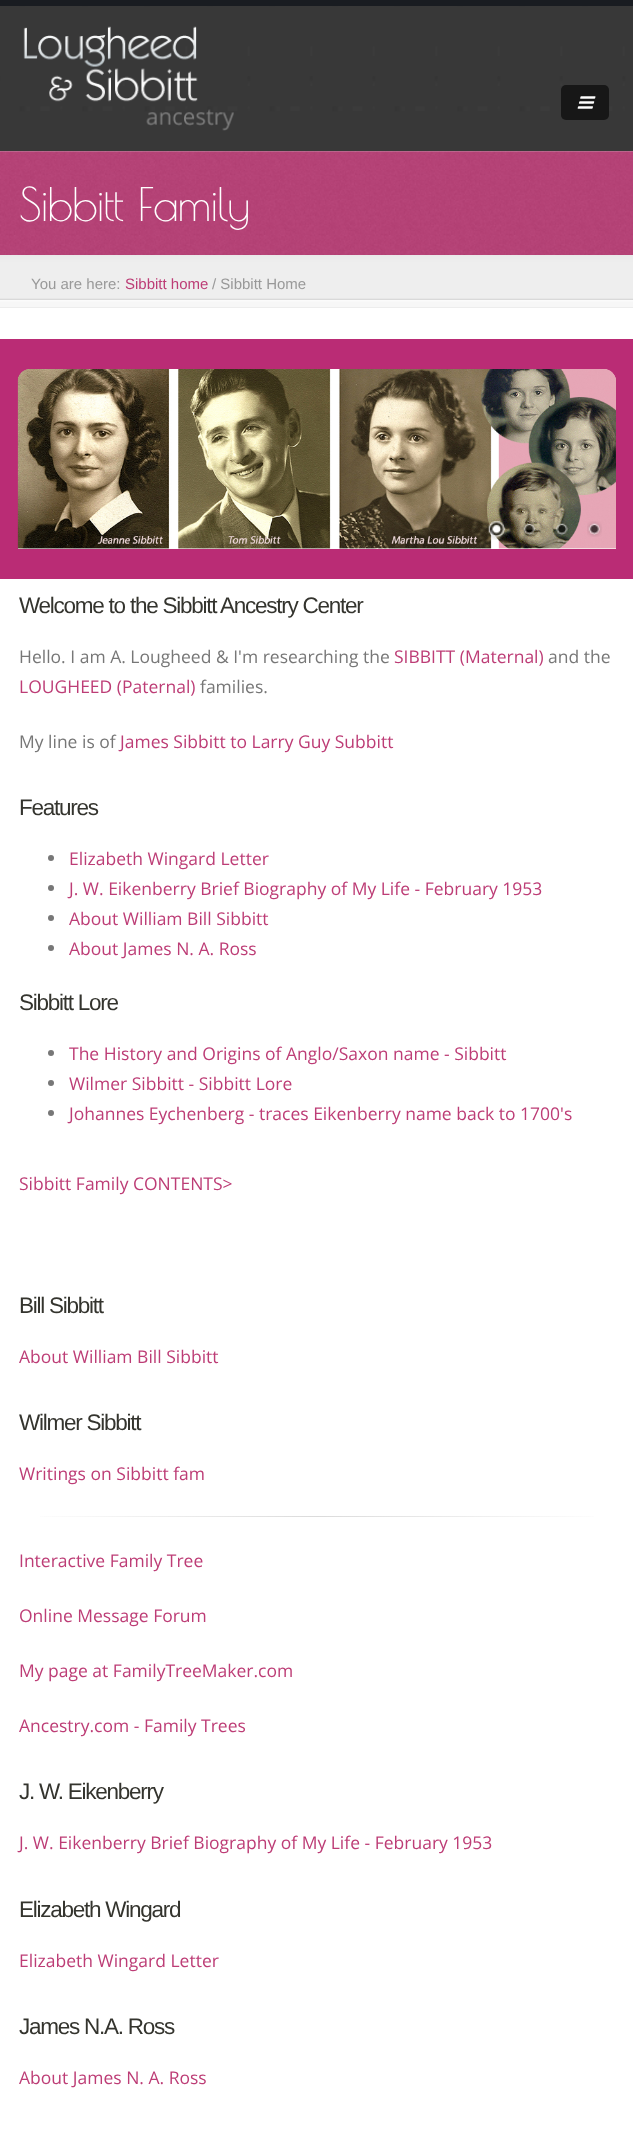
async function draw(canvas) {
  canvas.width = 633;
  canvas.height = 2133;
  const ctx = canvas.getContext('2d');
  ctx.miterLimit = 4;
  ctx.fontKerning = 'normal';
  function label(s, x, y, font, color) {
    ctx.font = font;
    ctx.fillStyle = color;
    ctx.fillText(s, x, y);
  }
  function rect(x, y, w, h, color) {
    ctx.fillStyle = color;
    ctx.fillRect(x, y, w, h);
  }
  function roundedRect(x, y, w, h, r, color) {
    ctx.fillStyle = color;
    ctx.beginPath();
    ctx.roundRect(x, y, w, h, r);
    ctx.fill();
  }
  async function image(src, x, y, w, h) {
    const img = new Image();
    img.src = src;
    await img.decode();
    ctx.drawImage(img, x, y, w, h);
  }
  let gradient;

  rect(0, 0, 633, 2133, '#fff');
  await image('assets/img1.png', 0, 6, 633, 146);
  rect(0, 0, 633, 6, '#191c21');
  await image('assets/img2.png', 23, 26, 211, 105);
  roundedRect(561, 85, 48, 35, 5, '#171717');
  await image('assets/img3.png', 577, 96, 19, 13);
  await image('assets/img4.png', 0, 151, 633, 104);
  ctx.letterSpacing = '-1.25px';
  label('Sibbitt Family', 19, 221, '45.5px Poiret One', '#fff');
  rect(0, 307, 633, 1, '#e2e2e2');
  await image('assets/img5.png', 0, 255, 633, 53);
  ctx.letterSpacing = '0px';
  label('You are here:', 31, 289, '15px Liberation Sans', '#999');
  label('Sibbitt home', 125, 289, '15px Liberation Sans', '#bd3d76');
  label('/ Sibbitt Home', 212, 289, '15px Liberation Sans', '#999');
  rect(0, 339, 633, 240, '#ba2c75');
  ctx.fillStyle = '#fff';
  ctx.beginPath();
  ctx.roundRect(18, 369, 598, 180, [13, 13, 0, 0]);
  ctx.fill();
  await image('assets/img6.png', 17, 369, 599, 180);
  await image('assets/img7.png', 487, 518, 20, 22);
  await image('assets/img8.png', 522, 522, 15, 14);
  await image('assets/img9.png', 554, 522, 15, 13);
  await image('assets/img10.png', 587, 521, 15, 16);
  ctx.letterSpacing = '-1.25px';
  label('Welcome to the Sibbitt Ancestry Center', 19, 613, '22.5px Liberation Sans', '#34342e');
  ctx.letterSpacing = '0px';
  label('Hello. I am A. Lougheed & I\'m researching the', 19, 663, '17.5px Open Sans', '#777');
  label('SIBBITT (Maternal)', 394, 663, '17.5px Open Sans', '#bd3d76');
  label('and the', 548, 663, '17.5px Open Sans', '#777');
  label('LOUGHEED (Paternal)', 19, 693, '17.5px Open Sans', '#bd3d76');
  label('families.', 200, 693, '17.5px Open Sans', '#777');
  label('My line is of', 19, 748, '17.5px Open Sans', '#777');
  label('James Sibbitt to Larry Guy Subbitt', 120, 748, '17.5px Open Sans', '#bd3d76');
  ctx.letterSpacing = '-1.25px';
  label('Features', 19, 815, '22.5px Liberation Sans', '#34342e');
  ctx.fillStyle = '#777';
  ctx.beginPath();
  ctx.arc(51, 858, 3, 0, 2 * Math.PI);
  ctx.fill();
  ctx.letterSpacing = '0px';
  label('Elizabeth Wingard Letter', 69, 865, '17.5px Open Sans', '#bd3d76');
  ctx.fillStyle = '#777';
  ctx.beginPath();
  ctx.arc(51, 888, 3, 0, 2 * Math.PI);
  ctx.fill();
  label('J. W. Eikenberry Brief Biography of My Life - February 1953', 69, 895, '17.5px Open Sans', '#bd3d76');
  ctx.fillStyle = '#777';
  ctx.beginPath();
  ctx.arc(51, 918, 3, 0, 2 * Math.PI);
  ctx.fill();
  label('About William Bill Sibbitt', 69, 925, '17.5px Open Sans', '#bd3d76');
  ctx.fillStyle = '#777';
  ctx.beginPath();
  ctx.arc(51, 948, 3, 0, 2 * Math.PI);
  ctx.fill();
  label('About James N. A. Ross', 69, 955, '17.5px Open Sans', '#bd3d76');
  ctx.letterSpacing = '-1.25px';
  label('Sibbitt Lore', 19, 1010, '22.5px Liberation Sans', '#34342e');
  ctx.fillStyle = '#777';
  ctx.beginPath();
  ctx.arc(51, 1053, 3, 0, 2 * Math.PI);
  ctx.fill();
  ctx.letterSpacing = '0px';
  label('The History and Origins of Anglo/Saxon name - Sibbitt', 69, 1060, '17.5px Open Sans', '#bd3d76');
  ctx.fillStyle = '#777';
  ctx.beginPath();
  ctx.arc(51, 1083, 3, 0, 2 * Math.PI);
  ctx.fill();
  label('Wilmer Sibbitt - Sibbitt Lore', 69, 1090, '17.5px Open Sans', '#bd3d76');
  ctx.fillStyle = '#777';
  ctx.beginPath();
  ctx.arc(51, 1113, 3, 0, 2 * Math.PI);
  ctx.fill();
  label('Johannes Eychenberg - traces Eikenberry name back to 1700\'s', 69, 1120, '17.5px Open Sans', '#bd3d76');
  label('Sibbitt Family CONTENTS>', 19, 1190, '17.5px Open Sans', '#bd3d76');
  ctx.letterSpacing = '-1.25px';
  label('Bill Sibbitt', 19, 1313, '22.5px Liberation Sans', '#34342e');
  ctx.letterSpacing = '0px';
  label('About William Bill Sibbitt', 19, 1363, '17.5px Open Sans', '#bd3d76');
  ctx.letterSpacing = '-1.25px';
  label('Wilmer Sibbitt', 19, 1430, '22.5px Liberation Sans', '#34342e');
  ctx.letterSpacing = '0px';
  label('Writings on Sibbitt fam', 19, 1480, '17.5px Open Sans', '#bd3d76');
  gradient = ctx.createLinearGradient(19, 1517, 615, 1517);
  gradient.addColorStop(0, '#fff');
  gradient.addColorStop(0.5, '#dbdbdb');
  gradient.addColorStop(1, '#fff');
  ctx.fillStyle = gradient;
  ctx.fillRect(40, 1516, 554, 1);
  label('Interactive Family Tree', 19, 1567, '17.5px Open Sans', '#bd3d76');
  label('Online Message Forum', 19, 1622, '17.5px Open Sans', '#bd3d76');
  label('My page at FamilyTreeMaker.com', 19, 1677, '17.5px Open Sans', '#bd3d76');
  label('Ancestry.com - Family Trees', 19, 1732, '17.5px Open Sans', '#bd3d76');
  ctx.letterSpacing = '-1.25px';
  label('J. W. Eikenberry', 19, 1799, '22.5px Liberation Sans', '#34342e');
  ctx.letterSpacing = '0px';
  label('J. W. Eikenberry Brief Biography of My Life - February 1953', 19, 1849, '17.5px Open Sans', '#bd3d76');
  ctx.letterSpacing = '-1.25px';
  label('Elizabeth Wingard', 19, 1917, '22.5px Liberation Sans', '#34342e');
  ctx.letterSpacing = '0px';
  label('Elizabeth Wingard Letter', 19, 1967, '17.5px Open Sans', '#bd3d76');
  ctx.letterSpacing = '-1.25px';
  label('James N.A. Ross', 19, 2034, '22.5px Liberation Sans', '#34342e');
  ctx.letterSpacing = '0px';
  label('About James N. A. Ross', 19, 2084, '17.5px Open Sans', '#bd3d76');
}

draw(document.querySelector('canvas'));
